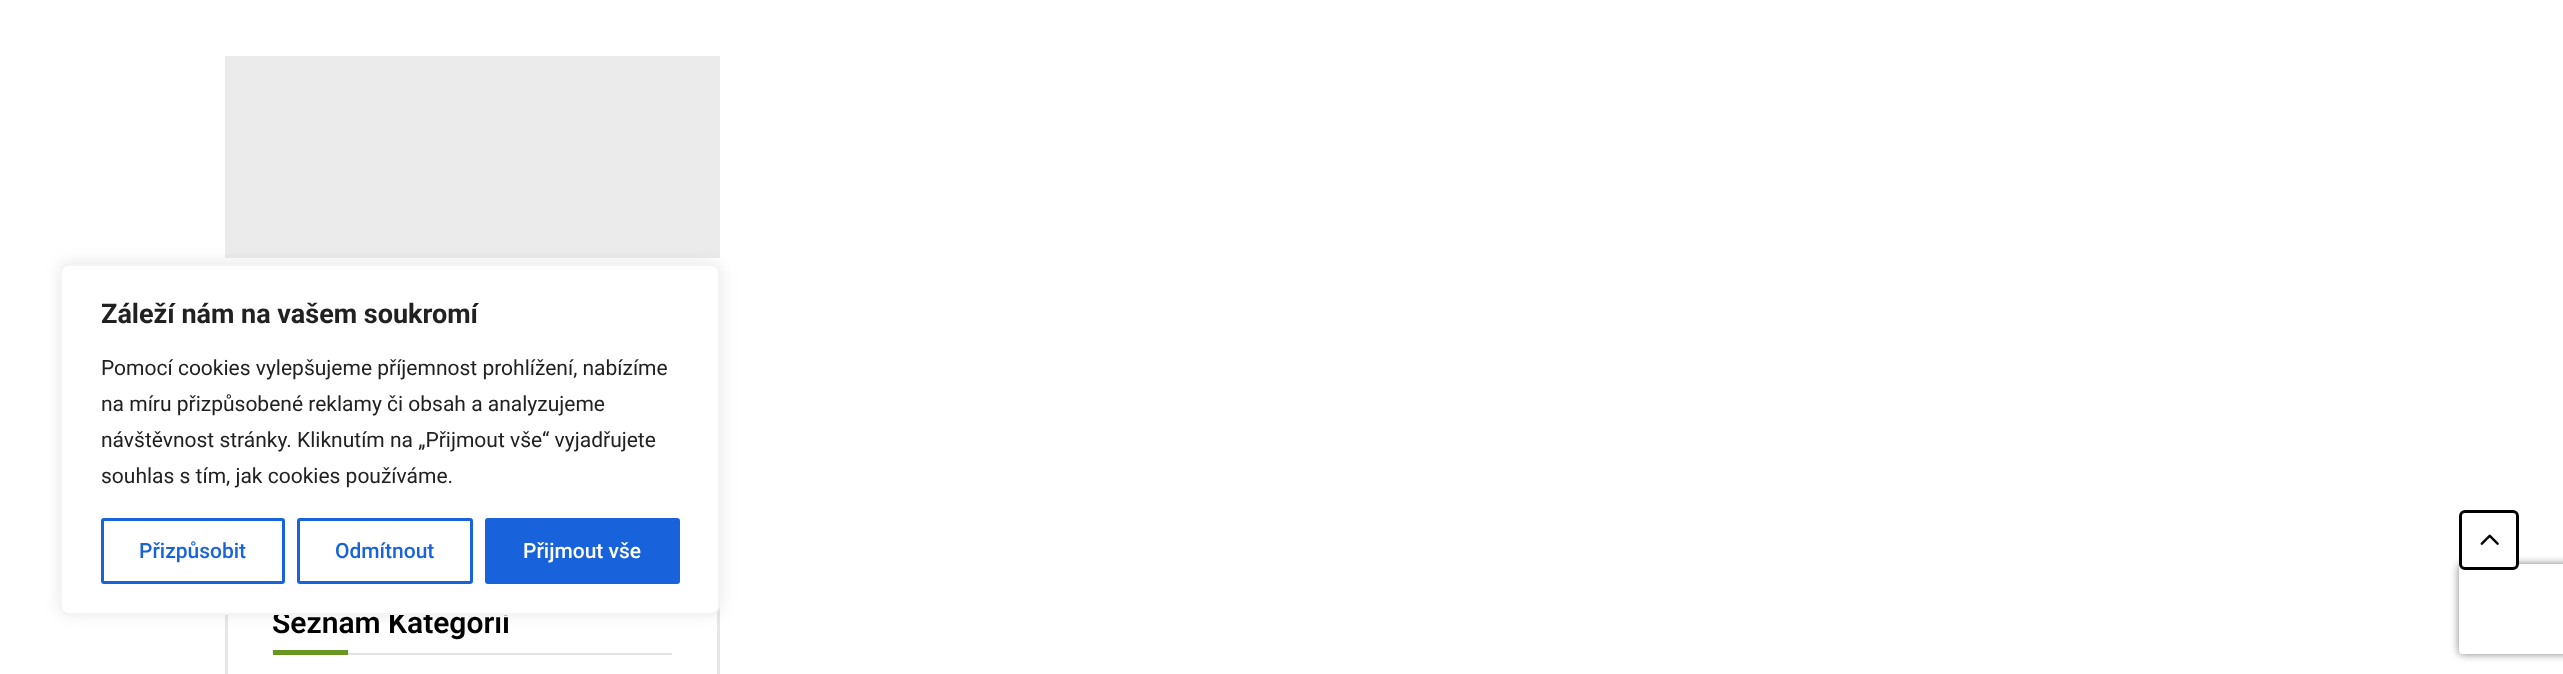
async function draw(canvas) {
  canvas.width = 2563;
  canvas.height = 674;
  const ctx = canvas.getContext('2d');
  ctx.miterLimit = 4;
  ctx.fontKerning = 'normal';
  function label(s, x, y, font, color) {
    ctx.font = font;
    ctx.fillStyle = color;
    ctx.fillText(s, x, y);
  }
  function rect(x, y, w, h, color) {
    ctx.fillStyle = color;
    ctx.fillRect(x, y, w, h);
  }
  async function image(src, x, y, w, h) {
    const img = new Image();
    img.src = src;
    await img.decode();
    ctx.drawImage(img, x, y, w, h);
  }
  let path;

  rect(0, 0, 2563, 674, '#fff');
  rect(225, 56, 495, 202, '#ebebeb');
  ctx.strokeStyle = '#e6e6e6';
  ctx.lineWidth = 3;
  ctx.strokeRect(226.5, 576.5, 492, 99);
  ctx.fillStyle = '#acabab4d';
  ctx.filter = 'blur(7.5px)';
  ctx.beginPath();
  ctx.roundRect(60, 263, 660, 351, 9);
  ctx.fill();
  ctx.filter = 'none';
  label('Seznam Kategorií', 272, 633, '600 30px Roboto', '#000');
  ctx.fillStyle = '#fff';
  ctx.beginPath();
  ctx.roundRect(61, 265, 658, 349, 8);
  ctx.fill();
  ctx.strokeStyle = '#f4f4f4';
  ctx.lineWidth = 2;
  ctx.stroke();
  label('Záleží nám na vašem soukromí', 101, 323, 'bold 27px Roboto', '#212121');
  label('Pomocí cookies vylepšujeme příjemnost prohlížení, nabízíme', 101, 375, '21px Roboto', '#212121');
  label('na míru přizpůsobené reklamy či obsah a analyzujeme', 101, 411, '21px Roboto', '#212121');
  label('návštěvnost stránky. Kliknutím na „Přijmout vše“ vyjadřujete', 101, 447, '21px Roboto', '#212121');
  label('souhlas s tím, jak cookies používáme.', 101, 483, '21px Roboto', '#212121');
  ctx.beginPath();
  ctx.roundRect(102.5, 519.5, 181, 63, 1.5);
  ctx.strokeStyle = '#1863dc';
  ctx.lineWidth = 3;
  ctx.stroke();
  label('Přizpůsobit', 139, 558, '500 21px Roboto', '#1863dc');
  ctx.beginPath();
  ctx.roundRect(298.5, 519.5, 173, 63, 1.5);
  ctx.stroke();
  label('Odmítnout', 335, 558, '500 21px Roboto', '#1863dc');
  ctx.beginPath();
  ctx.roundRect(486.5, 519.5, 192, 63, 1.5);
  ctx.fill();
  ctx.stroke();
  label('Přijmout vše', 523, 558, '500 21px Roboto', '#fff');
  ctx.save();
  path = new Path2D('M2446 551H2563V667H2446ZM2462 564H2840C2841.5 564 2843 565.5 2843 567V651C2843 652.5 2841.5 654 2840 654H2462C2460.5 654 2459 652.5 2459 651V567C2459 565.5 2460.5 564 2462 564Z');
  ctx.clip(path, 'evenodd');
  ctx.fillStyle = '#808080';
  ctx.filter = 'blur(4px)';
  ctx.beginPath();
  ctx.roundRect(2459, 564, 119, 90, 3);
  ctx.fill();
  ctx.filter = 'none';
  ctx.restore();
  ctx.beginPath();
  ctx.roundRect(2460.5, 511.5, 57, 57, 4.5);
  ctx.fill();
  ctx.strokeStyle = '#000';
  ctx.stroke();
  await image('assets/img1.png', 2480, 534, 19, 11);
  rect(348, 653, 324, 2, '#e1e1e1');
  rect(273, 650, 75, 5, '#689620');
}

draw(document.querySelector('canvas'));
